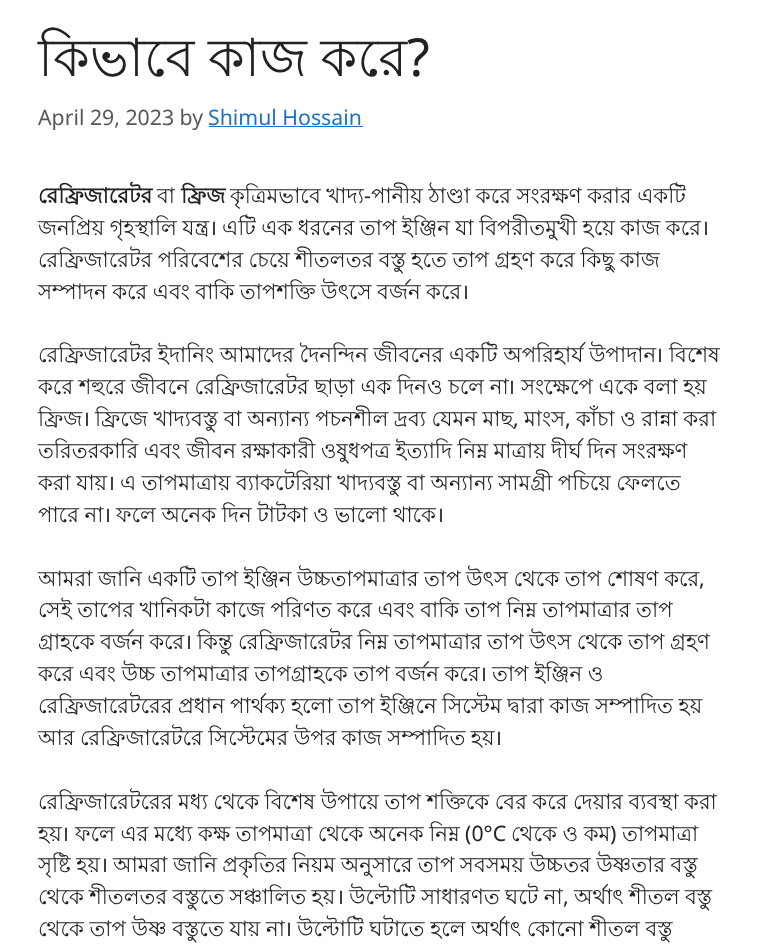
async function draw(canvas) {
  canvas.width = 759;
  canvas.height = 944;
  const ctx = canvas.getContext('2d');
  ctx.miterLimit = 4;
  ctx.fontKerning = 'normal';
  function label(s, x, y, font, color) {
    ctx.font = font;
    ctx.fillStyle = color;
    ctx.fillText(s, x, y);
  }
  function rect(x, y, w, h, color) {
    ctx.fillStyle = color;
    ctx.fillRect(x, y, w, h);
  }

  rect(0, 0, 759, 944, '#fff');
  ctx.wordSpacing = '-1px';
  label('কিভাবে কাজ করে', 38, 76, '52.5px Lohit Bengali', '#222');
  ctx.wordSpacing = '0px';
  label('?', 407, 76, '52.5px Noto Sans', '#222');
  label('April 29, 2023 by', 38, 125, '21.25px Noto Sans', '#575760');
  label('Shimul Hossain', 208, 125, '21.25px Noto Sans', '#1e73be');
  rect(209, 126, 154, 1, '#1e73be');
  label('রেফ্রিজারেটর', 38, 203, 'bold 21.25px Lohit Bengali', '#222');
  label('বা', 157, 203, '21.25px Lohit Bengali', '#222');
  label('ফ্রিজ', 181, 203, 'bold 21.25px Lohit Bengali', '#222');
  ctx.wordSpacing = '-0.25px';
  label('কৃত্রিমভাবে খাদ্য', 230, 203, '21.25px Lohit Bengali', '#222');
  ctx.wordSpacing = '0px';
  label('-', 364, 203, '21.25px Noto Sans', '#222');
  ctx.wordSpacing = '-0.25px';
  label('পানীয় ঠাণ্ডা করে সংরক্ষণ করার একটি', 371, 203, '21.25px Lohit Bengali', '#222');
  ctx.wordSpacing = '-0.4px';
  label('জনপ্রিয় গৃহস্থালি যন্ত্র', 38, 235, '21.25px Lohit Bengali', '#222');
  ctx.wordSpacing = '0px';
  label('।', 209, 235, '21.25px Noto Sans', '#222');
  ctx.wordSpacing = '-0.4px';
  label('এটি এক ধরনের তাপ ইঞ্জিন যা বিপরীতমুখী হয়ে কাজ করে', 222, 235, '21.25px Lohit Bengali', '#222');
  ctx.wordSpacing = '0px';
  label('।', 701, 235, '21.25px Noto Sans', '#222');
  ctx.wordSpacing = '-0.4px';
  label('রেফ্রিজারেটর পরিবেশের চেয়ে শীতলতর বস্তু হতে তাপ গ্রহণ করে কিছু কাজ', 38, 267, '21.25px Lohit Bengali', '#222');
  label('সম্পাদন করে এবং বাকি তাপশক্তি উৎসে বর্জন করে', 38, 299, '21.25px Lohit Bengali', '#222');
  ctx.wordSpacing = '0px';
  label('।', 461, 299, '21.25px Noto Sans', '#222');
  ctx.wordSpacing = '-0.25px';
  label('রেফ্রিজারেটর ইদানিং আমাদের দৈনন্দিন জীবনের একটি অপরিহার্য উপাদান', 38, 362, '21.25px Lohit Bengali', '#222');
  ctx.wordSpacing = '0px';
  label('।', 655, 362, '21.25px Noto Sans', '#222');
  label('বিশেষ', 669, 362, '21.25px Lohit Bengali', '#222');
  ctx.wordSpacing = '-0.25px';
  label('করে শহুরে জীবনে রেফ্রিজারেটর ছাড়া এক দিনও চলে না', 38, 394, '21.25px Lohit Bengali', '#222');
  ctx.wordSpacing = '0px';
  label('।', 507, 394, '21.25px Noto Sans', '#222');
  ctx.wordSpacing = '-0.25px';
  label('সংক্ষেপে একে বলা হয়', 521, 394, '21.25px Lohit Bengali', '#222');
  ctx.wordSpacing = '0px';
  label('ফ্রিজ', 38, 426, '21.25px Lohit Bengali', '#222');
  label('।', 82, 426, '21.25px Noto Sans', '#222');
  ctx.wordSpacing = '-0.25px';
  label('ফ্রিজে খাদ্যবস্তু বা অন্যান্য পচনশীল দ্রব্য যেমন মাছ', 95, 426, '21.25px Lohit Bengali', '#222');
  ctx.wordSpacing = '0px';
  label(',', 513, 426, '21.25px Noto Sans', '#222');
  label('মাংস', 524, 426, '21.25px Lohit Bengali', '#222');
  label(',', 565, 426, '21.25px Noto Sans', '#222');
  ctx.wordSpacing = '-0.25px';
  label('কাঁচা ও রান্না করা', 576, 426, '21.25px Lohit Bengali', '#222');
  ctx.wordSpacing = '-0.4px';
  label('তরিতরকারি এবং জীবন রক্ষাকারী ওষুধপত্র ইত্যাদি নিম্ন মাত্রায় দীর্ঘ দিন সংরক্ষণ', 38, 458, '21.25px Lohit Bengali', '#222');
  label('করা যায়', 38, 490, '21.25px Lohit Bengali', '#222');
  ctx.wordSpacing = '0px';
  label('।', 107, 490, '21.25px Noto Sans', '#222');
  ctx.wordSpacing = '-0.4px';
  label('এ তাপমাত্রায় ব্যাকটেরিয়া খাদ্যবস্তু বা অন্যান্য সামগ্রী পচিয়ে ফেলতে', 120, 490, '21.25px Lohit Bengali', '#222');
  ctx.wordSpacing = '-0.25px';
  label('পারে না', 38, 522, '21.25px Lohit Bengali', '#222');
  ctx.wordSpacing = '0px';
  label('।', 103, 522, '21.25px Noto Sans', '#222');
  ctx.wordSpacing = '-0.25px';
  label('ফলে অনেক দিন টাটকা ও ভালো থাকে', 116, 522, '21.25px Lohit Bengali', '#222');
  ctx.wordSpacing = '0px';
  label('।', 436, 522, '21.25px Noto Sans', '#222');
  ctx.wordSpacing = '-0.4px';
  label('আমরা জানি একটি তাপ ইঞ্জিন উচ্চতাপমাত্রার তাপ উৎস থেকে তাপ শোষণ করে', 38, 586, '21.25px Lohit Bengali', '#222');
  ctx.wordSpacing = '0px';
  label(',', 699, 586, '21.25px Noto Sans', '#222');
  ctx.wordSpacing = '-0.4px';
  label('সেই তাপের খানিকটা কাজে পরিণত করে এবং বাকি তাপ নিম্ন তাপমাত্রার তাপ', 38, 617, '21.25px Lohit Bengali', '#222');
  label('গ্রাহকে বর্জন করে', 38, 649, '21.25px Lohit Bengali', '#222');
  ctx.wordSpacing = '0px';
  label('।', 184, 649, '21.25px Noto Sans', '#222');
  ctx.wordSpacing = '-0.4px';
  label('কিন্তু রেফ্রিজারেটর নিম্ন তাপমাত্রার তাপ উৎস থেকে তাপ গ্রহণ', 197, 649, '21.25px Lohit Bengali', '#222');
  ctx.wordSpacing = '-0.25px';
  label('করে এবং উচ্চ তাপমাত্রার তাপগ্রাহকে তাপ বর্জন করে', 38, 681, '21.25px Lohit Bengali', '#222');
  ctx.wordSpacing = '0px';
  label('।', 479, 681, '21.25px Noto Sans', '#222');
  ctx.wordSpacing = '-0.25px';
  label('তাপ ইঞ্জিন ও', 492, 681, '21.25px Lohit Bengali', '#222');
  ctx.wordSpacing = '-0.4px';
  label('রেফ্রিজারেটরের প্রধান পার্থক্য হলো তাপ ইঞ্জিনে সিস্টেম দ্বারা কাজ সম্পাদিত হয়', 38, 713, '21.25px Lohit Bengali', '#222');
  label('আর রেফ্রিজারেটরে সিস্টেমের উপর কাজ সম্পাদিত হয়', 38, 745, '21.25px Lohit Bengali', '#222');
  ctx.wordSpacing = '0px';
  label('।', 494, 745, '21.25px Noto Sans', '#222');
  ctx.wordSpacing = '-0.4px';
  label('রেফ্রিজারেটরের মধ্য থেকে বিশেষ উপায়ে তাপ শক্তিকে বের করে দেয়ার ব্যবস্থা করা', 38, 809, '21.25px Lohit Bengali', '#222');
  ctx.wordSpacing = '0px';
  label('হয়', 38, 841, '21.25px Lohit Bengali', '#222');
  label('।', 61, 841, '21.25px Noto Sans', '#222');
  ctx.wordSpacing = '-0.25px';
  label('ফলে এর মধ্যে কক্ষ তাপমাত্রা থেকে অনেক নিম্ন', 75, 841, '21.25px Lohit Bengali', '#222');
  ctx.wordSpacing = '0px';
  label('(0°C', 465, 841, '21.25px Noto Sans', '#222');
  ctx.wordSpacing = '-0.25px';
  label('থেকে ও কম', 511, 841, '21.25px Lohit Bengali', '#222');
  ctx.wordSpacing = '0px';
  label(')', 610, 841, '21.25px Noto Sans', '#222');
  label('তাপমাত্রা', 622, 841, '21.25px Lohit Bengali', '#222');
  ctx.wordSpacing = '-0.4px';
  label('সৃষ্টি হয়', 38, 872, '21.25px Lohit Bengali', '#222');
  ctx.wordSpacing = '0px';
  label('।', 100, 872, '21.25px Noto Sans', '#222');
  ctx.wordSpacing = '-0.4px';
  label('আমরা জানি প্রকৃতির নিয়ম অনুসারে তাপ সবসময় উচ্চতর উষ্ণতার বস্তু', 113, 872, '21.25px Lohit Bengali', '#222');
  ctx.wordSpacing = '-0.5px';
  label('থেকে শীতলতর বস্তুতে সঞ্চালিত হয়', 38, 904, '21.25px Lohit Bengali', '#222');
  ctx.wordSpacing = '0px';
  label('।', 336, 904, '21.25px Noto Sans', '#222');
  ctx.wordSpacing = '-0.5px';
  label('উল্টোটি সাধারণত ঘটে না', 349, 904, '21.25px Lohit Bengali', '#222');
  ctx.wordSpacing = '0px';
  label(',', 563, 904, '21.25px Noto Sans', '#222');
  ctx.wordSpacing = '-0.5px';
  label('অর্থাৎ শীতল বস্তু', 574, 904, '21.25px Lohit Bengali', '#222');
  ctx.wordSpacing = '-0.25px';
  label('থেকে তাপ উষ্ণ বস্তুতে যায় না', 38, 936, '21.25px Lohit Bengali', '#222');
  ctx.wordSpacing = '0px';
  label('।', 284, 936, '21.25px Noto Sans', '#222');
  ctx.wordSpacing = '-0.25px';
  label('উল্টোটি ঘটাতে হলে অর্থাৎ কোনো শীতল বস্তু', 297, 936, '21.25px Lohit Bengali', '#222');
}

draw(document.querySelector('canvas'));
